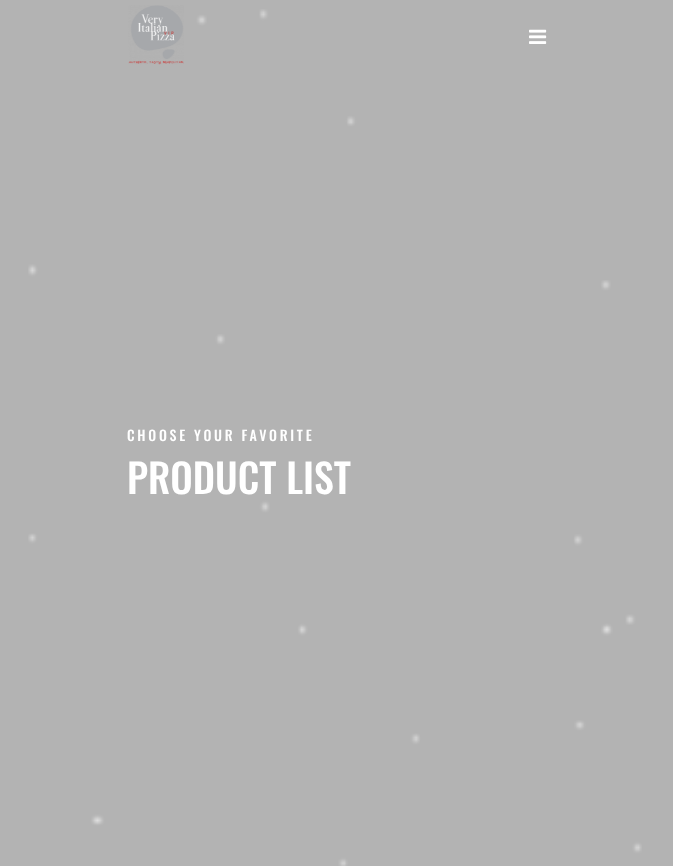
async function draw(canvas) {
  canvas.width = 673;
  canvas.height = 866;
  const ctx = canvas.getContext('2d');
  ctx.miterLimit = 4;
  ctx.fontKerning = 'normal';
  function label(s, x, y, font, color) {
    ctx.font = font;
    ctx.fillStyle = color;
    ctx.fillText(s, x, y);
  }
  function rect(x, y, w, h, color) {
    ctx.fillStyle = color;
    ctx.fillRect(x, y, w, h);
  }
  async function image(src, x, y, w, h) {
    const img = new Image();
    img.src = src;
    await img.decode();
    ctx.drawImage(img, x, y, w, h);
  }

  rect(0, 0, 673, 866, '#b3b3b3');
  await image('assets/img3.png', 28, 9, 614, 857);
  await image('assets/img1.png', 128, 5, 56, 60);
  await image('assets/img2.png', 529, 29, 18, 15);
  ctx.letterSpacing = '2.75px';
  label('CHOOSE YOUR FAVORITE', 127, 441, '500 14px Oswald', '#fff');
  ctx.letterSpacing = '0px';
  label('PRODUCT LIST', 127, 494, '500 40px Oswald', '#fff');
}

draw(document.querySelector('canvas'));
